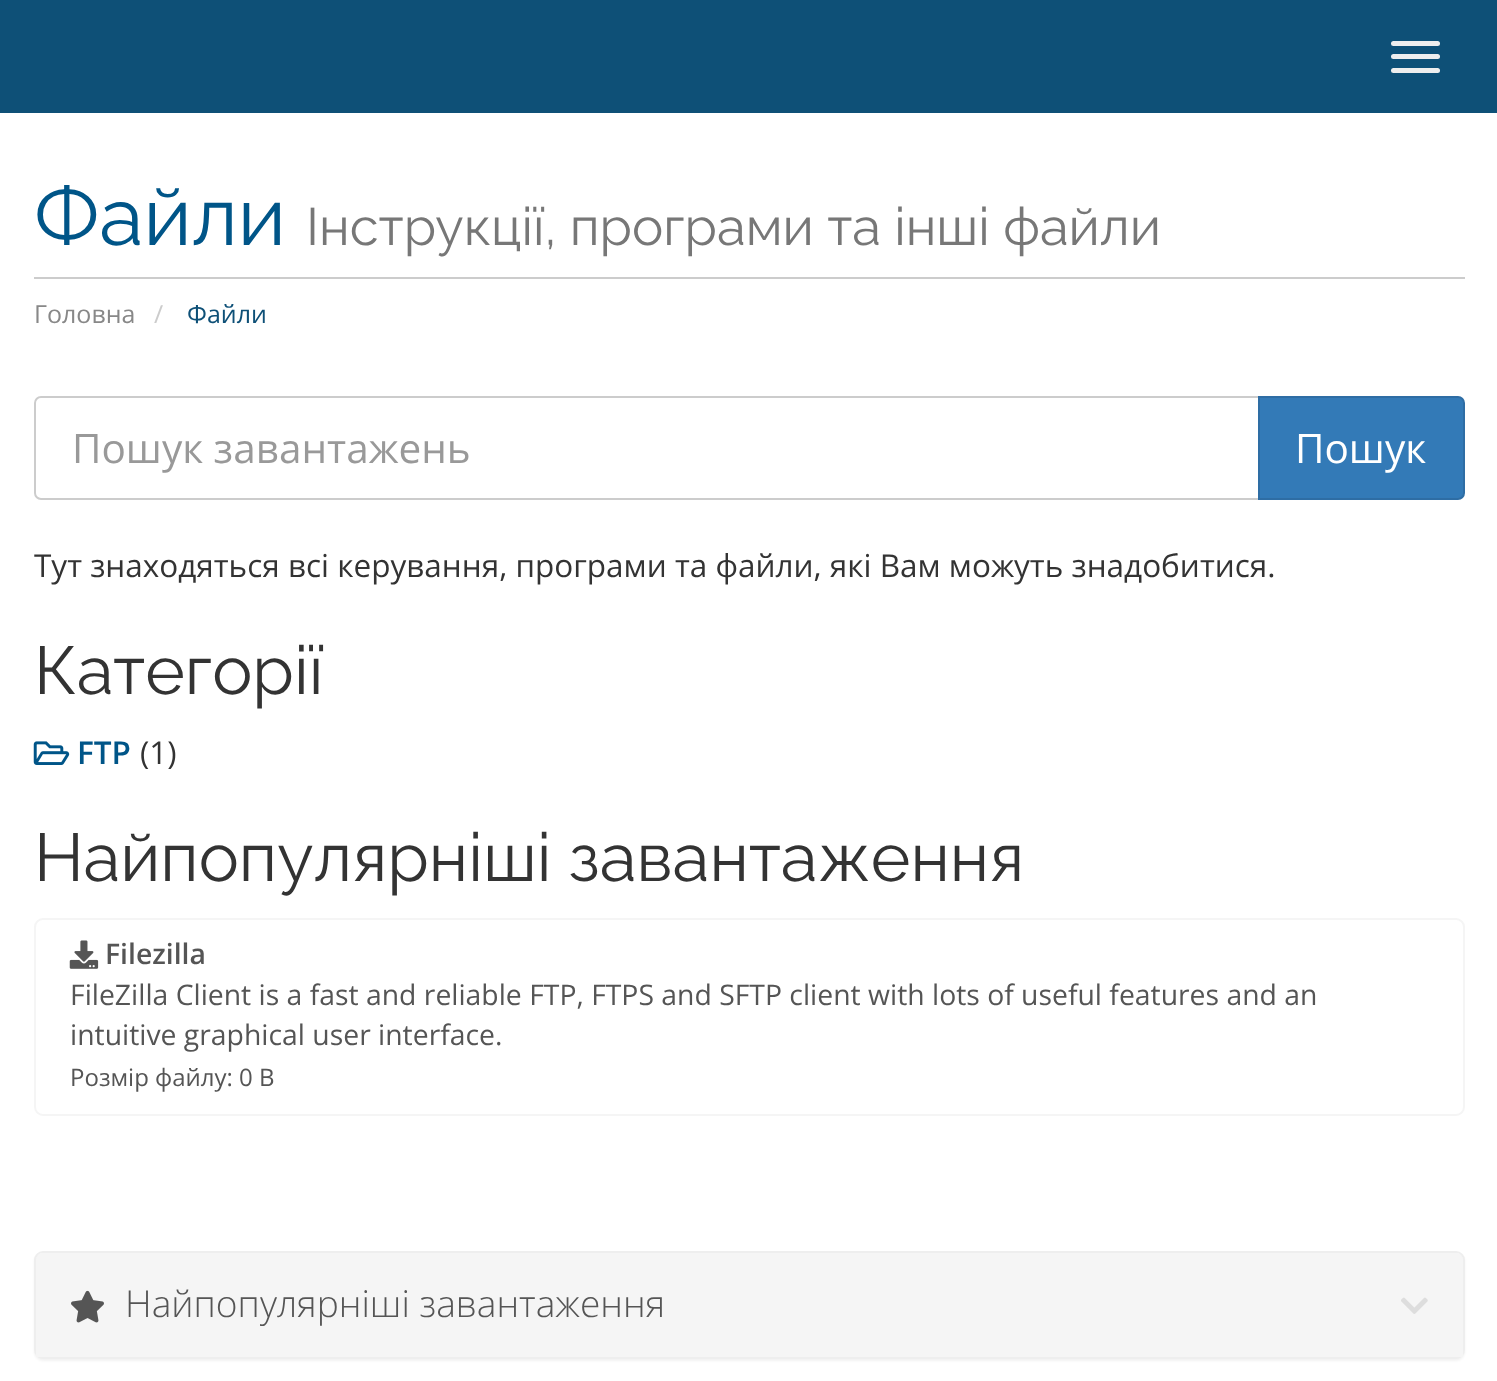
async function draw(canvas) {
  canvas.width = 1497;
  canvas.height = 1381;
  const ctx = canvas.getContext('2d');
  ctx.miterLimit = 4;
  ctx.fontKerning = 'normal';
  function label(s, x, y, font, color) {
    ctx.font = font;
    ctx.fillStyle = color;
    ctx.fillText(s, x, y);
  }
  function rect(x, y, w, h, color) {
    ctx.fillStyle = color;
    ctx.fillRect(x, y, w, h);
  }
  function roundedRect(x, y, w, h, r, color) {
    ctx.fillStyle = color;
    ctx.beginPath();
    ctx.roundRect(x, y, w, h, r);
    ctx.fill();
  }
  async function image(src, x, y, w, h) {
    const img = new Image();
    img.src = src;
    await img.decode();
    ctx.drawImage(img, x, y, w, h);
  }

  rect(0, 0, 1497, 1381, '#fff');
  rect(0, 0, 1497, 113, '#0e5077');
  roundedRect(1391, 41, 49, 5, 2.5, '#eee');
  roundedRect(1391, 54, 49, 5, 2.5, '#eee');
  roundedRect(1391, 68, 49, 5, 2.5, '#eee');
  rect(34, 277, 1431, 2, '#ccc');
  label('Файли', 34, 245, '81px Raleway', '#058');
  label('Інструкції, програми та інші файли', 306, 245, '52.6px Raleway', '#777');
  label('Головна', 34, 323, '25px Open Sans', '#888');
  label('/', 154, 323, '25px Open Sans', '#ccc');
  label('Файли', 187, 323, '25px Open Sans', '#0e5077');
  ctx.beginPath();
  ctx.roundRect(35, 397, 1224, 102, [6, 0, 0, 6]);
  ctx.strokeStyle = '#ccc';
  ctx.lineWidth = 2;
  ctx.stroke();
  label('Пошук завантажень', 72, 463, '40.5px Open Sans', '#999');
  ctx.fillStyle = '#337ab7';
  ctx.beginPath();
  ctx.roundRect(1259, 397, 205, 102, [0, 6, 6, 0]);
  ctx.fill();
  ctx.strokeStyle = '#2e6da4';
  ctx.stroke();
  label('Пошук', 1295, 463, '40.5px Open Sans', '#fff');
  label('Тут знаходяться всі керування, програми та файли, які Вам можуть знадобитися.', 34, 577, '31.5px Open Sans', '#333');
  label('Категорії', 34, 694, '67.5px Raleway', '#333');
  await image('assets/img1.png', 33, 741, 37, 24);
  label('FTP', 77, 764, '600 31.5px Open Sans', '#058');
  label('(1)', 140, 764, '31.5px Open Sans', '#333');
  label('Найпопулярніші завантаження', 34, 881, '67.5px Raleway', '#333');
  ctx.beginPath();
  ctx.roundRect(35, 919, 1429, 196, 8);
  ctx.strokeStyle = '#f5f5f5';
  ctx.stroke();
  await image('assets/img2.png', 69, 940, 30, 29);
  label('Filezilla', 105, 964, '600 28.35px Open Sans', '#555');
  label('FileZilla Client is a fast and reliable FTP, FTPS and SFTP client with lots of useful features and an', 70, 1005, '28.35px Open Sans', '#555');
  label('intuitive graphical user interface.', 70, 1045, '28.35px Open Sans', '#555');
  label('Розмір файлу: 0 B', 70, 1086, '24px Open Sans', '#555');
  ctx.fillStyle = '#0000000d';
  ctx.filter = 'blur(1px)';
  ctx.beginPath();
  ctx.roundRect(34, 1253, 1431, 108, 9);
  ctx.fill();
  ctx.filter = 'none';
  ctx.beginPath();
  ctx.roundRect(35, 1252, 1429, 106, 8);
  ctx.strokeStyle = '#eee';
  ctx.stroke();
  ctx.fillStyle = '#f5f5f5';
  ctx.beginPath();
  ctx.roundRect(36, 1253, 1427, 104, [7, 7, 0, 0]);
  ctx.fill();
  await image('assets/img3.png', 71, 1290, 33, 33);
  label('Найпопулярніші завантаження', 125, 1317, '300 37.1px Open Sans', '#555');
  await image('assets/img4.png', 1401, 1297, 27, 17);
}

draw(document.querySelector('canvas'));
